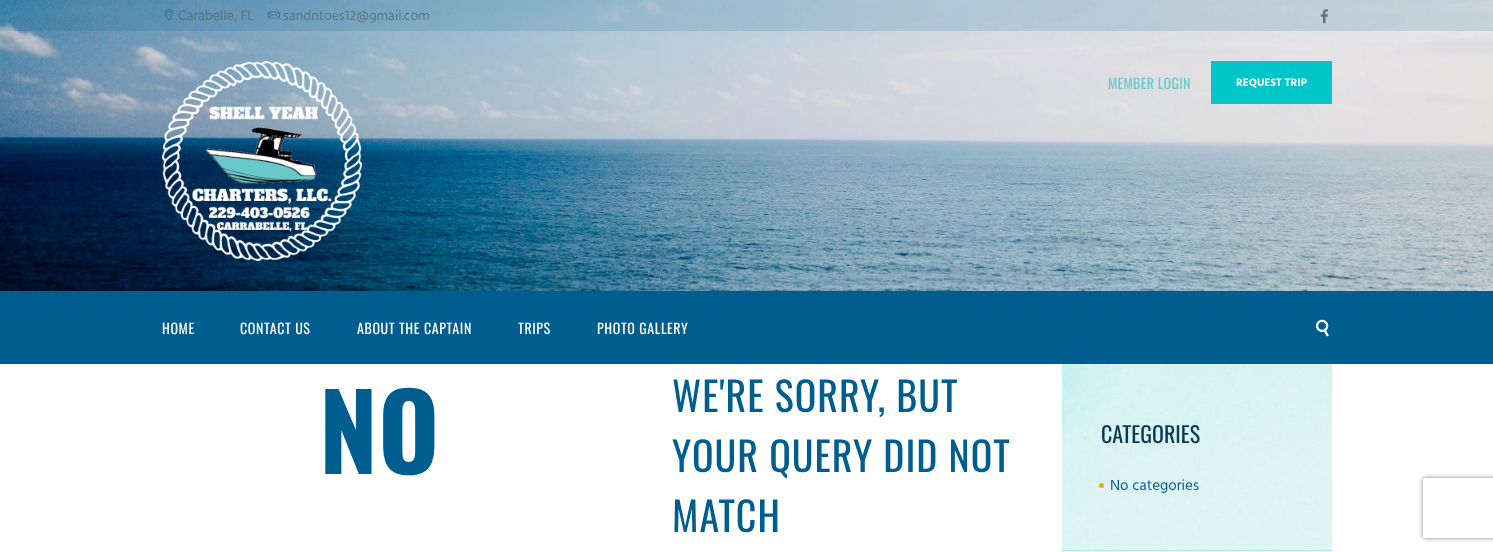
async function draw(canvas) {
  canvas.width = 1493;
  canvas.height = 552;
  const ctx = canvas.getContext('2d');
  ctx.miterLimit = 4;
  ctx.fontKerning = 'normal';
  function label(s, x, y, font, color) {
    ctx.font = font;
    ctx.fillStyle = color;
    ctx.fillText(s, x, y);
  }
  function rect(x, y, w, h, color) {
    ctx.fillStyle = color;
    ctx.fillRect(x, y, w, h);
  }
  async function image(src, x, y, w, h) {
    const img = new Image();
    img.src = src;
    await img.decode();
    ctx.drawImage(img, x, y, w, h);
  }
  let path;

  rect(0, 0, 1493, 552, '#fff');
  await image('assets/img1.png', 0, 0, 1493, 291);
  rect(0, 0, 1493, 31, '#005d8f26');
  await image('assets/img2.png', 164, 9, 10, 12);
  label('Carabelle, FL', 178, 20, '14px Hind', '#5e7480');
  await image('assets/img3.png', 268, 11, 12, 8);
  label('sandntoes12@gmail.com', 283, 20, '14px Hind', '#5e7480');
  await image('assets/img4.png', 1320, 9, 8, 15);
  await image('assets/img5.png', 162, 61, 200, 200);
  ctx.letterSpacing = '0.3px';
  label('MEMBER LOGIN', 1108, 89, '14px Oswald', '#69c8ca');
  rect(1211, 61, 121, 43, '#00c6c9');
  ctx.letterSpacing = '0px';
  label('REQUEST TRIP', 1236, 86, 'bold 11px Hind', '#fff');
  rect(0, 291, 1493, 73, '#005d8f');
  ctx.letterSpacing = '0.6px';
  label('HOME', 162, 334, '14px Oswald', '#fff');
  label('CONTACT US', 240, 334, '14px Oswald', '#fff');
  label('ABOUT THE CAPTAIN', 357, 334, '14px Oswald', '#fff');
  label('TRIPS', 518, 334, '14px Oswald', '#fff');
  label('PHOTO GALLERY', 597, 334, '14px Oswald', '#fff');
  await image('assets/img6.png', 1315, 319, 14, 18);
  ctx.letterSpacing = '0px';
  label('NO', 319, 474, 'bold 105px Oswald', '#005d8f');
  ctx.letterSpacing = '1px';
  label('WE\'RE SORRY, BUT', 672, 412, '40px Oswald', '#005d8f');
  label('YOUR QUERY DID NOT', 672, 472, '40px Oswald', '#005d8f');
  label('MATCH', 672, 532, '40px Oswald', '#005d8f');
  await image('assets/img7.png', 1062, 364, 270, 188);
  ctx.letterSpacing = '0px';
  label('CATEGORIES', 1101, 443, '22px Oswald', '#093a54');
  ctx.fillStyle = '#f7a800';
  ctx.beginPath();
  ctx.arc(1101.5, 485.5, 2.5, 0, 2 * Math.PI);
  ctx.fill();
  label('No categories', 1110, 490, '15px Hind', '#005d8f');
  rect(1062, 550, 270, 1, '#0eb3d633');
  ctx.save();
  path = new Path2D('M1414 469H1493V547H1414ZM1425 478H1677C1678 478 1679 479 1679 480V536C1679 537 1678 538 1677 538H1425C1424 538 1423 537 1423 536V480C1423 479 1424 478 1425 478Z');
  ctx.clip(path, 'evenodd');
  ctx.fillStyle = '#808080';
  ctx.filter = 'blur(2.5px)';
  ctx.beginPath();
  ctx.roundRect(1423, 478, 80, 60, 2);
  ctx.fill();
  ctx.filter = 'none';
  ctx.restore();
}

draw(document.querySelector('canvas'));
